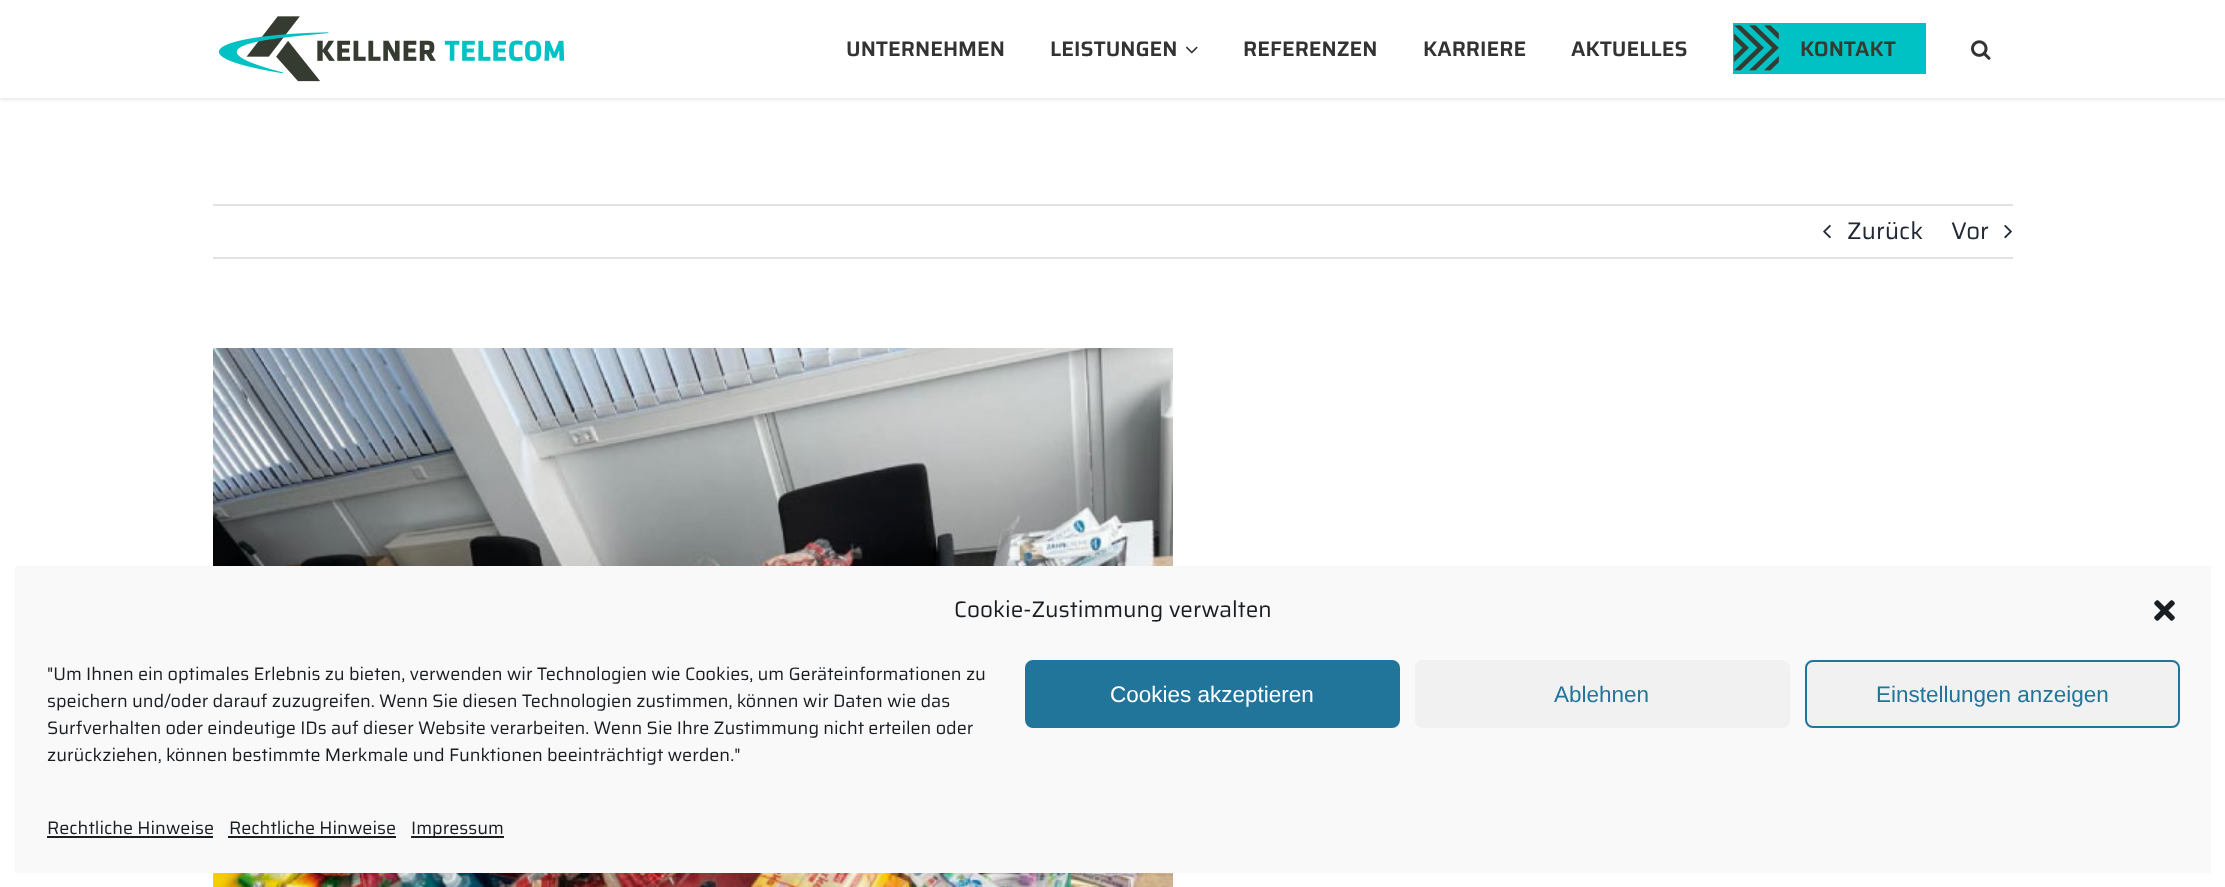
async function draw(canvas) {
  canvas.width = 2225;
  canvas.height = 887;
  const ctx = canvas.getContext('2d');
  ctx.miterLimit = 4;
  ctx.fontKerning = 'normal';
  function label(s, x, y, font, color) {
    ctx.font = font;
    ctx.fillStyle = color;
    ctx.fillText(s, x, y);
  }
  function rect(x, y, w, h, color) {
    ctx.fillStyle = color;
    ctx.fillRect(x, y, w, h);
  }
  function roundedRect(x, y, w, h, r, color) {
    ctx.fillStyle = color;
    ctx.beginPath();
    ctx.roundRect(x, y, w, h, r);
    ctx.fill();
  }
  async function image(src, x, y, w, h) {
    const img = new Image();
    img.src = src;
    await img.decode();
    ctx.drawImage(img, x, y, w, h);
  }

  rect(0, 0, 2225, 887, '#fff');
  ctx.fillStyle = '#0000001f';
  ctx.filter = 'blur(2px)';
  ctx.beginPath();
  ctx.rect(0, 2, 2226, 97);
  ctx.fill();
  ctx.filter = 'none';
  rect(0, 0, 2225, 98, '#fff');
  await image('assets/img1.png', 218, 16, 347, 66);
  label('UNTERNEHMEN', 846, 56, '600 21px Saira', '#333');
  label('LEISTUNGEN', 1050, 56, '600 21px Saira', '#333');
  await image('assets/img2.png', 1186, 46, 12, 8);
  label('REFERENZEN', 1243, 56, '600 21px Saira', '#333');
  label('KARRIERE', 1423, 56, '600 21px Saira', '#333');
  label('AKTUELLES', 1571, 56, '600 21px Saira', '#333');
  rect(1733, 23, 193, 51, '#00c2c4');
  await image('assets/img3.png', 1734, 25, 45, 46);
  label('KONTAKT', 1800, 56, '600 21px Saira', '#363b31');
  await image('assets/img4.png', 1971, 40, 20, 20);
  rect(213, 204, 1800, 2, '#e2e2e2');
  rect(213, 257, 1800, 2, '#e2e2e2');
  await image('assets/img5.png', 1823, 224, 8, 15);
  label('Zurück', 1847, 239, '24px Saira', '#212934');
  label('Vor', 1951, 239, '24px Saira', '#212934');
  await image('assets/img6.png', 2004, 224, 8, 15);
  await image('assets/img7.png', 213, 348, 960, 539);
  rect(15, 566, 2196, 307, '#f9f9f9');
  label('Cookie-Zustimmung verwalten', 954, 617, '22.5px Saira', '#191e23');
  await image('assets/img8.png', 2154, 600, 21, 21);
  label('"Um Ihnen ein optimales Erlebnis zu bieten, verwenden wir Technologien wie Cookies, um Geräteinformationen zu', 47, 680, '18px Saira', '#191e23');
  label('speichern und/oder darauf zuzugreifen. Wenn Sie diesen Technologien zustimmen, können wir Daten wie das', 47, 707, '18px Saira', '#191e23');
  label('Surfverhalten oder eindeutige IDs auf dieser Website verarbeiten. Wenn Sie Ihre Zustimmung nicht erteilen oder', 47, 734, '18px Saira', '#191e23');
  label('zurückziehen, können bestimmte Merkmale und Funktionen beeinträchtigt werden."', 47, 761, '18px Saira', '#191e23');
  ctx.fillStyle = '#21759b';
  ctx.beginPath();
  ctx.roundRect(1026, 661, 373, 66, 7);
  ctx.fill();
  ctx.strokeStyle = '#21759b';
  ctx.lineWidth = 2;
  ctx.stroke();
  label('Cookies akzeptieren', 1110, 702, '22.5px Liberation Sans', '#fff');
  roundedRect(1415, 660, 375, 68, 8, '#f1f1f1');
  label('Ablehnen', 1554, 702, '22.5px Liberation Sans', '#21759b');
  ctx.fillStyle = '#f1f1f1';
  ctx.beginPath();
  ctx.roundRect(1806, 661, 373, 66, 7);
  ctx.fill();
  ctx.stroke();
  label('Einstellungen anzeigen', 1876, 702, '22.5px Liberation Sans', '#21759b');
  label('Rechtliche Hinweise', 47, 834, '18px Saira', '#191e23');
  rect(47, 836, 166, 2, '#191e23');
  label('Rechtliche Hinweise', 229, 834, '18px Saira', '#191e23');
  rect(228, 836, 168, 2, '#191e23');
  rect(411, 836, 93, 2, '#191e23');
  label('Impressum', 411, 834, '18px Saira', '#191e23');
}

draw(document.querySelector('canvas'));
